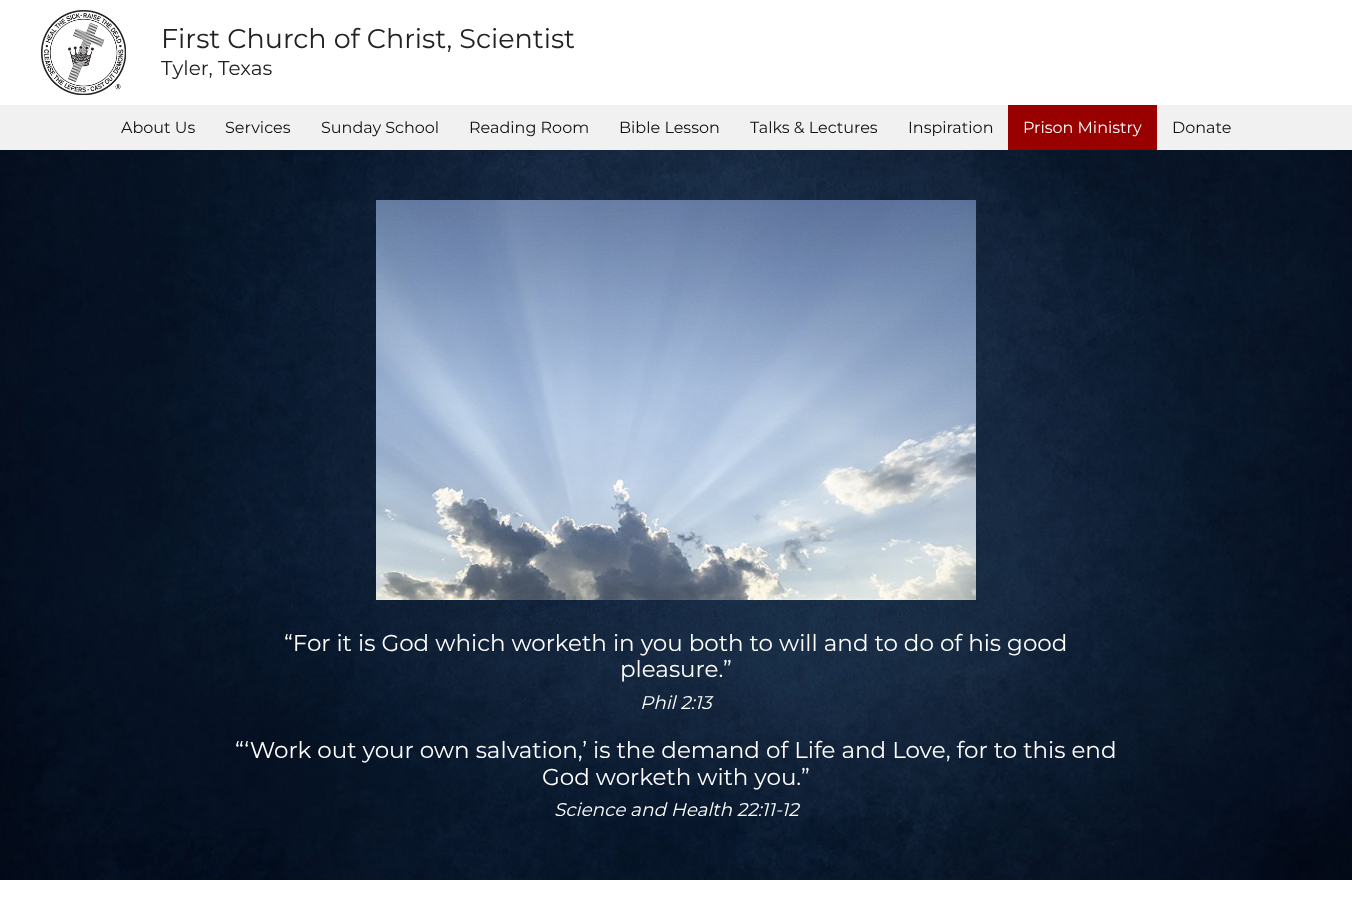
async function draw(canvas) {
  canvas.width = 1352;
  canvas.height = 911;
  const ctx = canvas.getContext('2d');
  ctx.miterLimit = 4;
  ctx.fontKerning = 'normal';
  function label(s, x, y, font, color) {
    ctx.font = font;
    ctx.fillStyle = color;
    ctx.fillText(s, x, y);
  }
  function rect(x, y, w, h, color) {
    ctx.fillStyle = color;
    ctx.fillRect(x, y, w, h);
  }
  async function image(src, x, y, w, h) {
    const img = new Image();
    img.src = src;
    await img.decode();
    ctx.drawImage(img, x, y, w, h);
  }

  rect(0, 0, 1352, 911, '#fff');
  await image('assets/img1.png', 41, 10, 85, 85);
  label('First Church of Christ, Scientist', 161, 48, '27px Montserrat', '#222');
  label('Tyler, Texas', 161, 75, '20px Montserrat', '#222');
  rect(0, 105, 1352, 45, '#f1f1f1');
  label('About Us', 121, 133, '16px Montserrat', '#111');
  label('Services', 225, 133, '16px Montserrat', '#111');
  label('Sunday School', 321, 133, '16px Montserrat', '#111');
  label('Reading Room', 469, 133, '16px Montserrat', '#111');
  label('Bible Lesson', 619, 133, '16px Montserrat', '#111');
  label('Talks & Lectures', 750, 133, '16px Montserrat', '#111');
  label('Inspiration', 908, 133, '16px Montserrat', '#111');
  rect(1008, 105, 149, 45, '#990100');
  label('Prison Ministry', 1023, 133, '16px Montserrat', '#fff');
  label('Donate', 1172, 133, '16px Montserrat', '#111');
  await image('assets/img2.png', 0, 150, 1352, 730);
  await image('assets/img3.png', 376, 200, 600, 400);
  label('“For it is God which worketh in you both to will and to do of his good', 284, 651, '23px Montserrat', '#fff');
  label('pleasure.', 620, 677, '23px Montserrat', '#fff');
  label('”', 723, 677, '23px Montserrat', '#fff');
  label('Phil 2:13', 640, 709, 'italic 18.4px Montserrat', '#fff');
  label('“‘Work out your own salvation,’ is the demand of Life and Love, for to this end', 235, 758, '23px Montserrat', '#fff');
  label('God worketh with you.', 542, 785, '23px Montserrat', '#fff');
  label('”', 801, 785, '23px Montserrat', '#fff');
  label('Science and Health 22:11-12', 554, 816, 'italic 18.4px Montserrat', '#fff');
}

draw(document.querySelector('canvas'));
